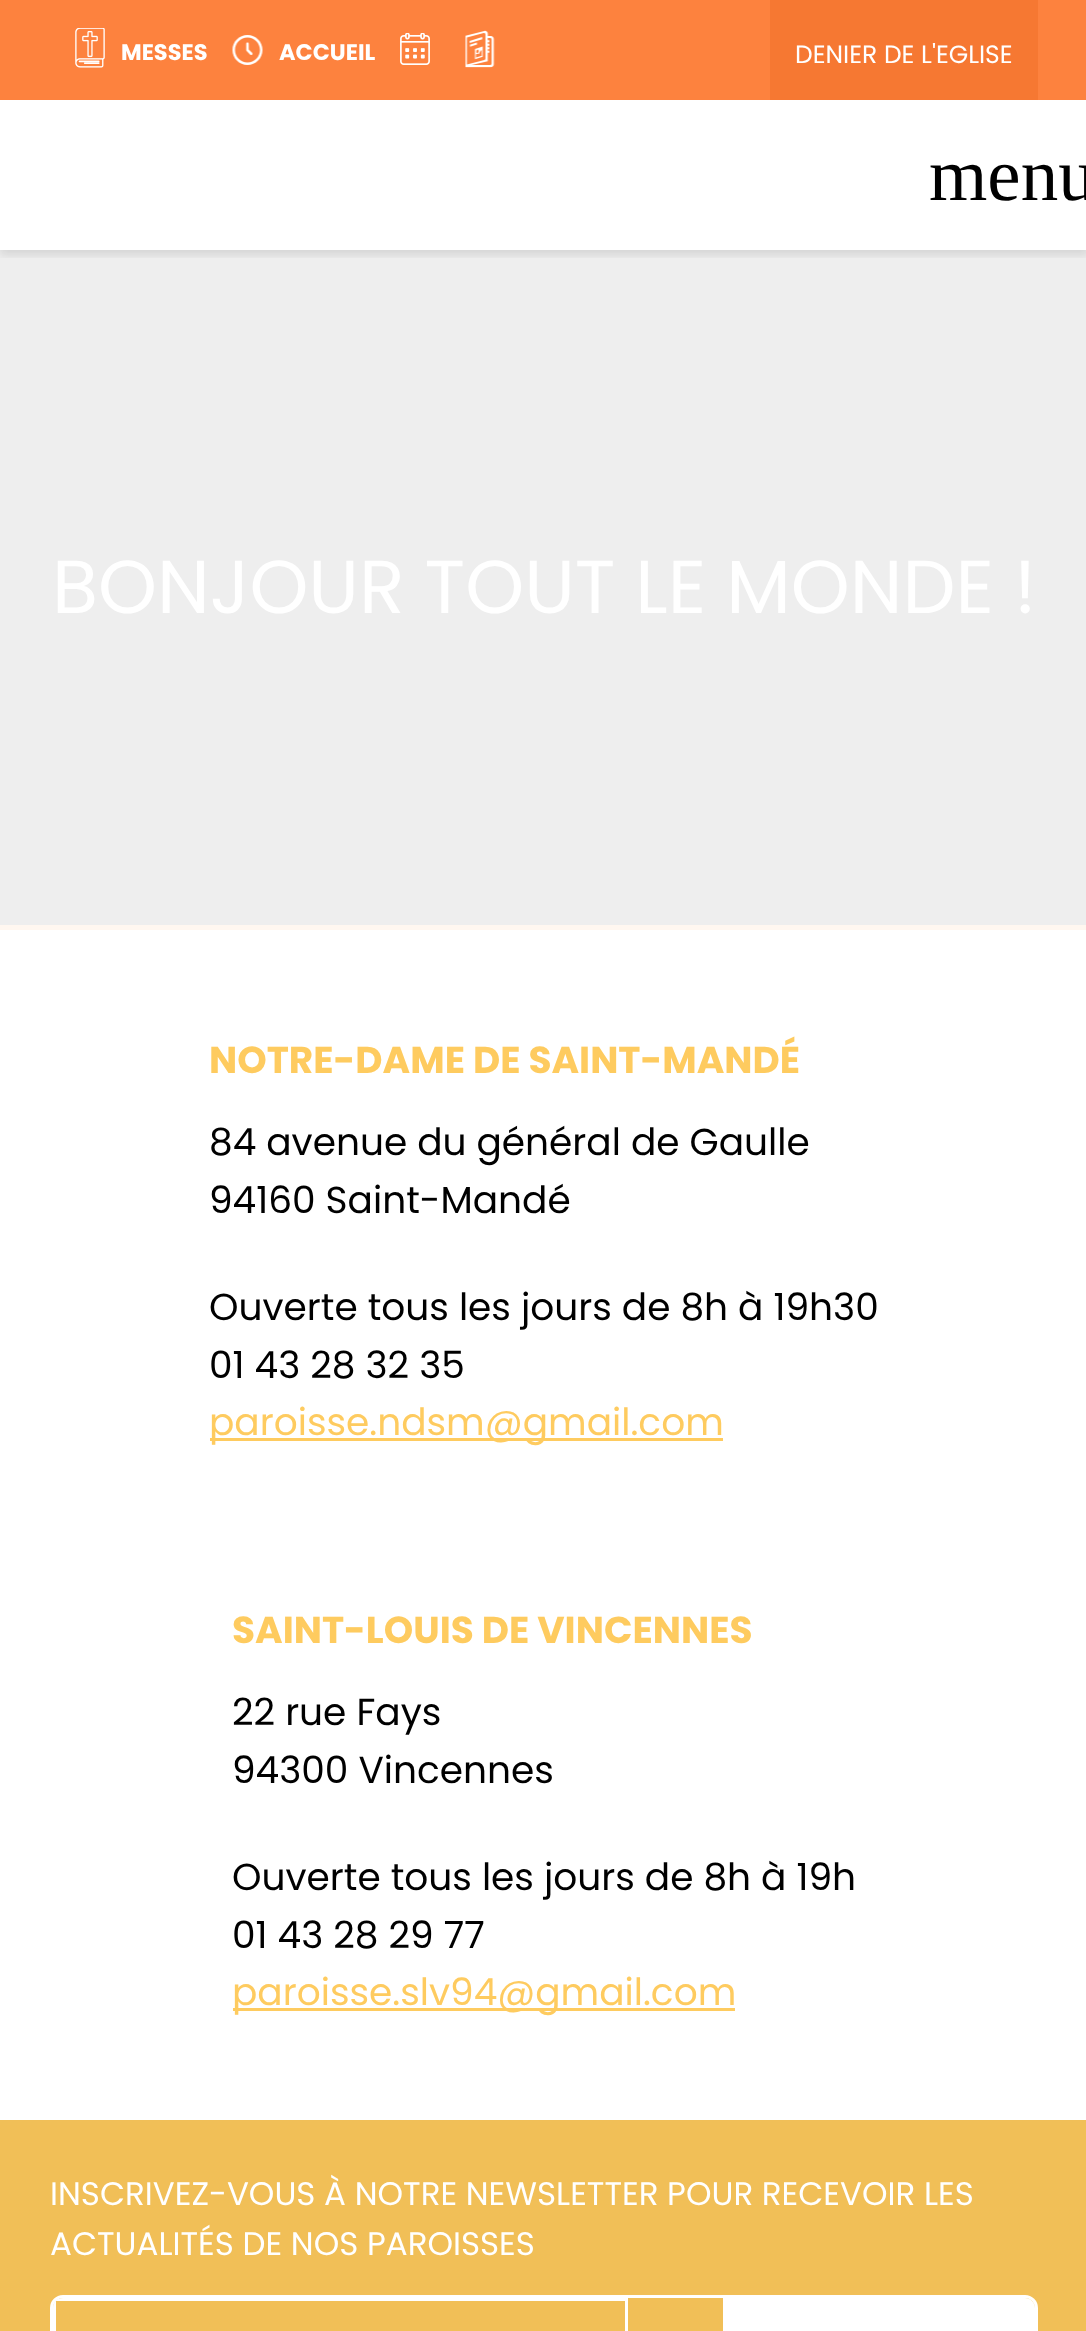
async function draw(canvas) {
  canvas.width = 1086;
  canvas.height = 2331;
  const ctx = canvas.getContext('2d');
  ctx.miterLimit = 4;
  ctx.fontKerning = 'normal';
  function label(s, x, y, font, color) {
    ctx.font = font;
    ctx.fillStyle = color;
    ctx.fillText(s, x, y);
  }
  function rect(x, y, w, h, color) {
    ctx.fillStyle = color;
    ctx.fillRect(x, y, w, h);
  }
  async function image(src, x, y, w, h) {
    const img = new Image();
    img.src = src;
    await img.decode();
    ctx.drawImage(img, x, y, w, h);
  }
  let path;

  rect(0, 0, 1086, 2331, '#fff');
  rect(0, 250, 1086, 675, '#eee');
  ctx.save();
  ctx.beginPath();
  ctx.rect(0, 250, 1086, 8);
  ctx.clip();
  ctx.fillStyle = '#0000001a';
  ctx.filter = 'blur(4px)';
  ctx.beginPath();
  ctx.rect(0, 105, 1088, 150);
  ctx.fill();
  ctx.filter = 'none';
  ctx.restore();
  rect(0, 0, 1086, 100, '#fd823e');
  await image('assets/img1.png', 75, 28, 30, 40);
  label('MESSES', 121, 60, 'bold 22.5px Poppins', '#fff');
  await image('assets/img2.png', 232, 35, 31, 30);
  label('ACCUEIL', 279, 60, 'bold 22.5px Poppins', '#fff');
  await image('assets/img3.png', 400, 33, 30, 32);
  await image('assets/img4.png', 465, 30, 30, 38);
  rect(770, 0, 268, 100, '#f67832');
  label('DENIER DE L\'EGLISE', 795, 63, '25px Poppins', '#fff');
  label('menu', 929, 200, '75px Liberation Serif', '#000');
  label('BONJOUR TOUT LE MONDE !', 52, 613, '75px Poppins', '#fff');
  rect(0, 925, 1086, 5, '#fff7f0');
  label('NOTRE-DAME DE SAINT-MANDÉ', 209, 1073, 'bold 37.5px Poppins', '#fecb5f');
  label('84 avenue du général de Gaulle', 209, 1155, '37.5px Poppins', '#000');
  label('94160 Saint-Mandé', 209, 1213, '37.5px Poppins', '#000');
  label('Ouverte tous les jours de 8h à 19h30', 209, 1320, '37.5px Poppins', '#000');
  label('01 43 28 32 35', 209, 1378, '37.5px Poppins', '#000');
  rect(210, 1438, 513, 3, '#fecb5f');
  label('paroisse.ndsm@gmail.com', 209, 1435, '37.5px Poppins', '#fecb5f');
  label('SAINT-LOUIS DE VINCENNES', 232, 1643, 'bold 37.5px Poppins', '#fecb5f');
  label('22 rue Fays', 232, 1725, '37.5px Poppins', '#000');
  label('94300 Vincennes', 232, 1783, '37.5px Poppins', '#000');
  label('Ouverte tous les jours de 8h à 19h', 232, 1890, '37.5px Poppins', '#000');
  label('01 43 28 29 77', 232, 1948, '37.5px Poppins', '#000');
  rect(233, 2008, 502, 3, '#fecb5f');
  label('paroisse.slv94@gmail.com', 232, 2005, '37.5px Poppins', '#fecb5f');
  rect(0, 2120, 1086, 211, '#f1bf57');
  label('INSCRIVEZ-VOUS À NOTRE NEWSLETTER POUR RECEVOIR LES', 50, 2205, '32.5px Poppins', '#fff');
  label('ACTUALITÉS DE NOS PAROISSES', 50, 2255, '32.5px Poppins', '#fff');
  ctx.beginPath();
  ctx.roundRect(51.5, 2296.5, 985, 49, 11.5);
  ctx.strokeStyle = '#fff';
  ctx.lineWidth = 3;
  ctx.stroke();
  path = new Path2D('M63 2298C57 2298 53 2302 53 2308V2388C53 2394 57 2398 63 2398H628V2298ZM56 2301V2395H625V2301Z');
  ctx.fill(path, 'evenodd');
  path = new Path2D('M723 2298H1025C1030.5 2298 1035 2302.5 1035 2308V2331C1035 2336.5 1030.5 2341 1025 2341H723Z');
  ctx.fill(path);
}

draw(document.querySelector('canvas'));
